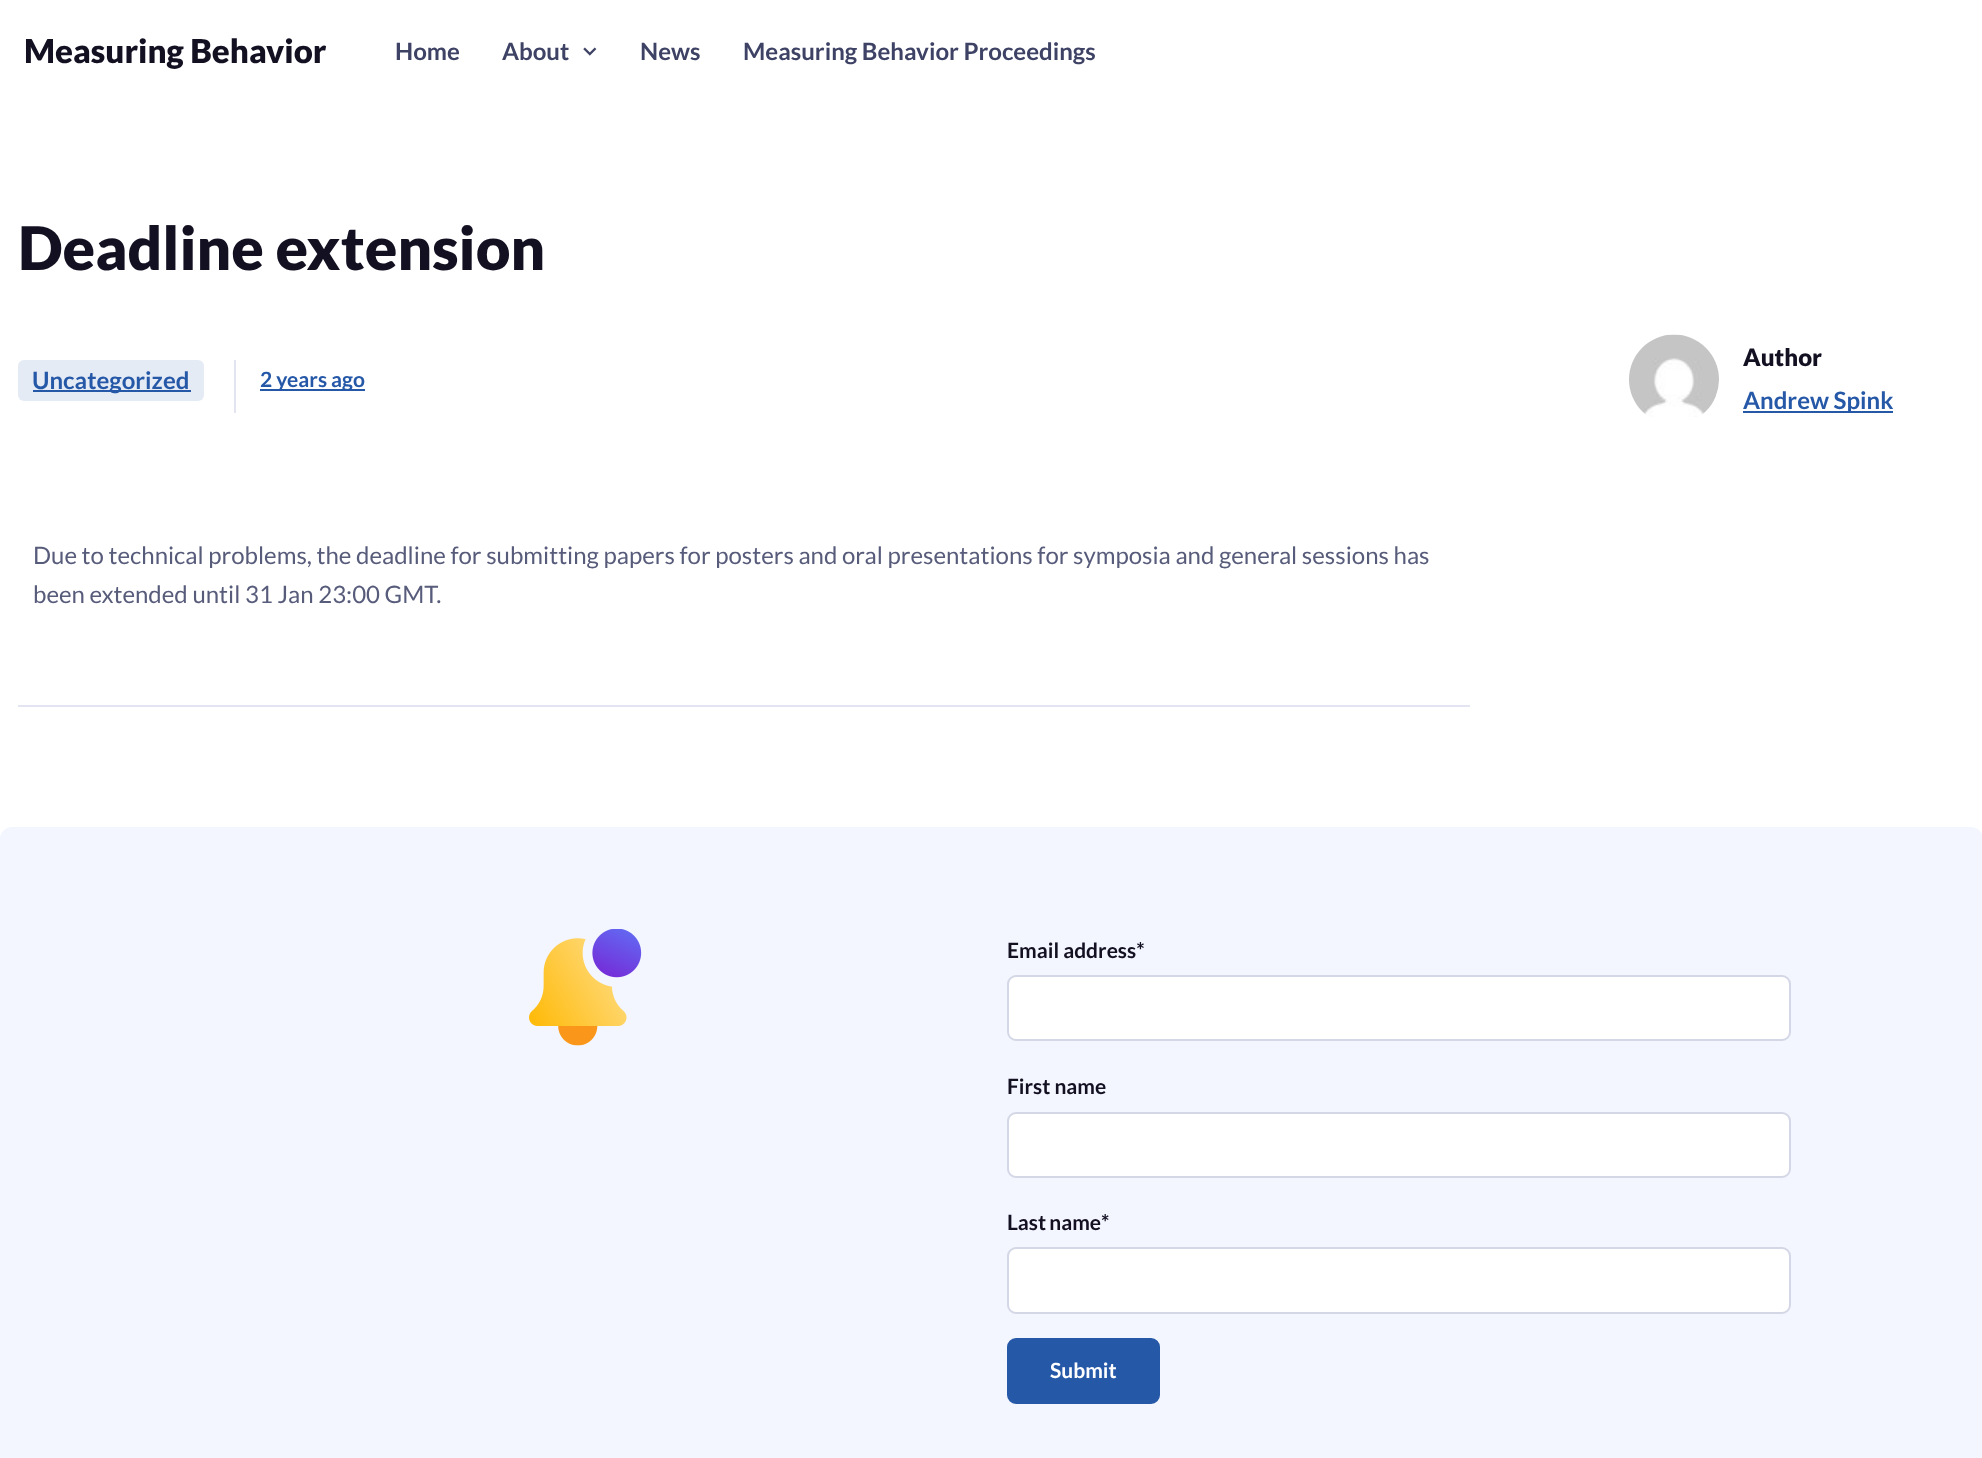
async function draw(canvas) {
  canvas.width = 1982;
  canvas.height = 1458;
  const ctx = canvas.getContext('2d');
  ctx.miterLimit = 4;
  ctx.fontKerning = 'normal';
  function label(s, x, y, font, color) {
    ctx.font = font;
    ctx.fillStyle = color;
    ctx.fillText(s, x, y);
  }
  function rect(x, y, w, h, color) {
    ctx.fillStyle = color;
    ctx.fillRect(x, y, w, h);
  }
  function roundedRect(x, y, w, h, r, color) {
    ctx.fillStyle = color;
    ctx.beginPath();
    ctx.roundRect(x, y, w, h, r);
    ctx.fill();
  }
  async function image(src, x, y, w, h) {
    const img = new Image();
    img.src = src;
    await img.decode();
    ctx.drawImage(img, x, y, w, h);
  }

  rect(0, 0, 1982, 1458, '#fff');
  label('Measuring Behavior', 24, 63, '900 33px Lato', '#131022');
  label('Home', 395, 60, 'bold 24px Lato', '#3e4265');
  label('About', 502, 60, 'bold 24px Lato', '#3e4265');
  await image('assets/img1.png', 583, 47, 14, 9);
  label('News', 640, 60, 'bold 24px Lato', '#3e4265');
  label('Measuring Behavior Proceedings', 743, 60, 'bold 24px Lato', '#3e4265');
  label('Deadline extension', 18, 270, '900 60px Lato', '#131022');
  rect(234, 360, 2, 53, '#e2e5f1');
  roundedRect(18, 360, 186, 41, 6, '#e5ebf5');
  rect(33, 390, 158, 2, '#2658a8');
  label('Uncategorized', 32, 389, 'bold 24px Lato', '#2658a8');
  rect(260, 389, 105, 2, '#2658a8');
  label('2 years ago', 260, 387, 'bold 21px Lato', '#2658a8');
  await image('assets/img2.png', 1629, 334, 90, 83);
  label('Author', 1743, 366, '900 24px Lato', '#131022');
  rect(1743, 411, 150, 2, '#2658a8');
  label('Andrew Spink', 1743, 409, 'bold 24px Lato', '#2658a8');
  label('Due to technical problems, the deadline for submitting papers for posters and oral presentations for symposia and general sessions has', 33, 564, '24px Lato', '#585c7b');
  label('been extended until 31 Jan 23:00 GMT.', 33, 603, '24px Lato', '#585c7b');
  rect(18, 705, 1452, 2, '#e2e5f1');
  roundedRect(0, 827, 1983, 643, 12, '#f3f6ff');
  await image('assets/img3.png', 529, 929, 113, 117);
  label('Email address*', 1007, 958, 'bold 21px Lato', '#131022');
  ctx.fillStyle = '#fff';
  ctx.beginPath();
  ctx.roundRect(1008, 976, 782, 64, 8);
  ctx.fill();
  ctx.strokeStyle = '#d4d7e5';
  ctx.lineWidth = 2;
  ctx.stroke();
  label('First name', 1007, 1094, 'bold 21px Lato', '#131022');
  ctx.fillStyle = '#fff';
  ctx.beginPath();
  ctx.roundRect(1008, 1113, 782, 64, 8);
  ctx.fill();
  ctx.stroke();
  ctx.wordSpacing = '-1px';
  label('Last name', 1007, 1230, 'bold 21px Lato', '#131022');
  ctx.wordSpacing = '0px';
  label('*', 1101, 1230, 'bold 21px Lato', '#131022');
  ctx.fillStyle = '#fff';
  ctx.beginPath();
  ctx.roundRect(1008, 1248, 782, 65, 8);
  ctx.fill();
  ctx.stroke();
  ctx.fillStyle = '#2658a8';
  ctx.beginPath();
  ctx.roundRect(1008, 1339, 151, 64, 8);
  ctx.fill();
  ctx.strokeStyle = '#2658a8';
  ctx.stroke();
  label('Submit', 1050, 1378, 'bold 21px Lato', '#fff');
}

draw(document.querySelector('canvas'));
